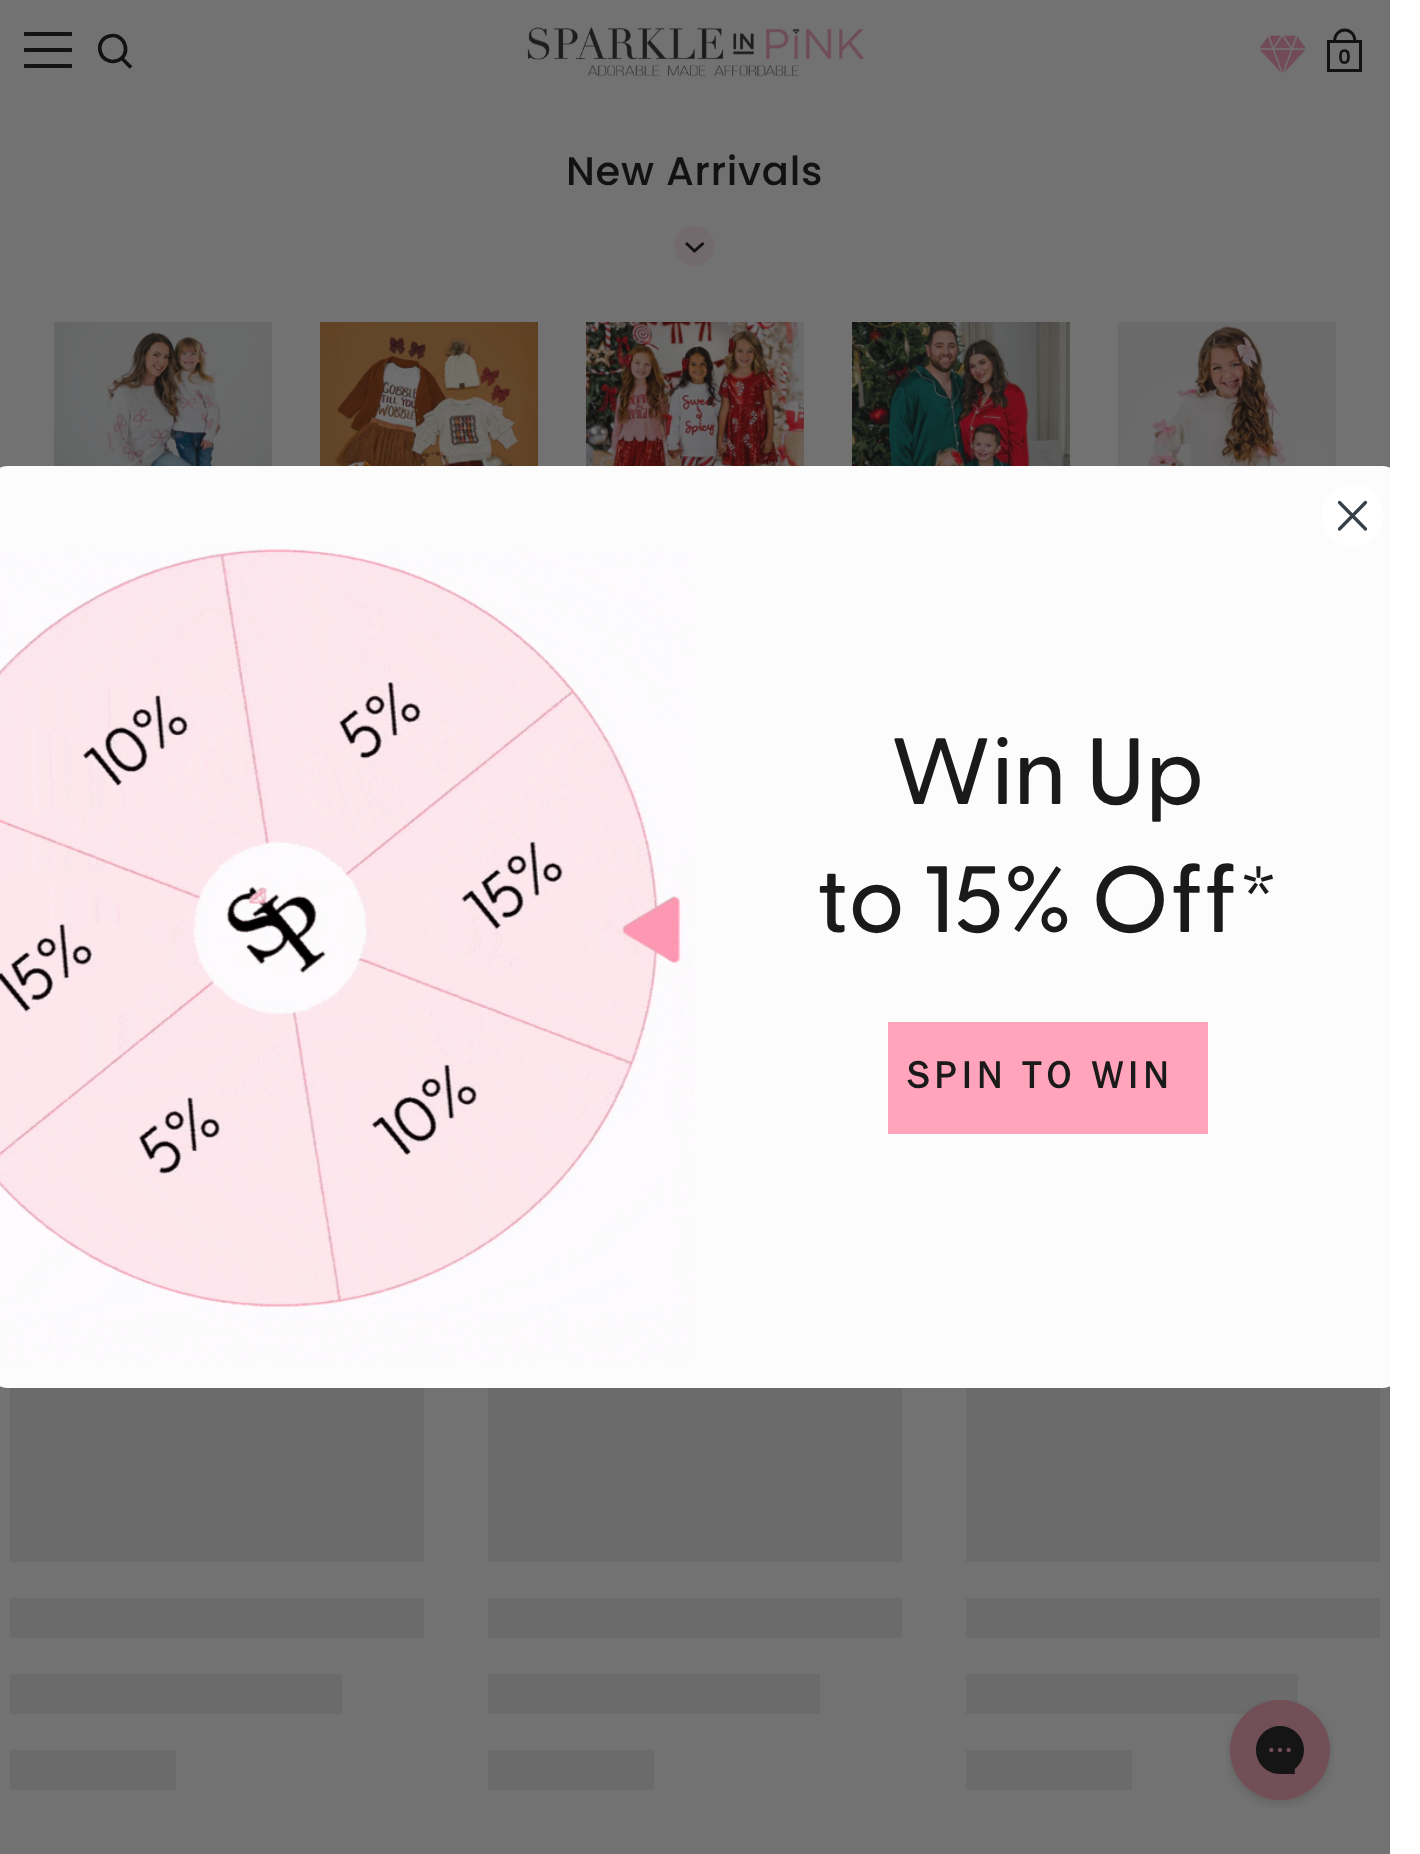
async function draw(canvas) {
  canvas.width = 1420;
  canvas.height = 1854;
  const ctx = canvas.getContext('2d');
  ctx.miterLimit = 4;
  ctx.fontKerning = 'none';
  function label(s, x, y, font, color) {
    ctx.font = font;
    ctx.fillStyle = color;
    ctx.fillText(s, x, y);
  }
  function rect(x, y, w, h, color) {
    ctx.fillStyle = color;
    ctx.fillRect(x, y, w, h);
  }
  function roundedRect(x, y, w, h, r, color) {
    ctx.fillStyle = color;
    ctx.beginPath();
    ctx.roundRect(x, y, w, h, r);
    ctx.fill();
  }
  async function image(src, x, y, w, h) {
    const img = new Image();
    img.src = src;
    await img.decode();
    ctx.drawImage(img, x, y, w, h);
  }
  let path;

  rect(0, 0, 1420, 1854, '#fff');
  rect(0, 0, 1390, 1854, '#727272');
  roundedRect(24, 32, 48, 4, 0.5, '#121212');
  roundedRect(24, 48, 48, 4, 0.5, '#121212');
  roundedRect(24, 64, 48, 4, 0.5, '#121212');
  path = new Path2D('M116 61C132.5 57 126 32 109.5 36C93 40 99 65 116 61ZM131 67.5L121.5 58');
  ctx.strokeStyle = '#121212';
  ctx.lineWidth = 3.6;
  ctx.stroke(path);
  await image('assets/img1.png', 527, 27, 337, 50);
  await image('assets/img2.png', 1259, 35, 47, 38);
  path = new Path2D('M1334.5 42C1334.5 26 1355 26 1355 42');
  ctx.lineWidth = 3;
  ctx.stroke(path);
  ctx.strokeRect(1328.5, 41.5, 32, 29);
  label('0', 1338, 64, '600 20px Poppins', '#121212');
  ctx.letterSpacing = '0.75px';
  label('New Arrivals', 566, 185, '500 40px Poppins', '#121212');
  ctx.fillStyle = '#726a6c';
  ctx.beginPath();
  ctx.arc(694.5, 246, 20, 0, 2 * Math.PI);
  ctx.fill();
  path = new Path2D('M686 243L694.5 251L703.5 243');
  ctx.stroke(path);
  await image('assets/img3.png', 54, 322, 218, 144);
  await image('assets/img4.png', 320, 322, 218, 144);
  await image('assets/img5.png', 586, 322, 218, 144);
  await image('assets/img6.png', 852, 322, 218, 144);
  await image('assets/img7.png', 1118, 322, 218, 144);
  rect(10, 1388, 414, 174, '#6b6b6b');
  rect(10, 1598, 414, 40, '#6b6b6b');
  rect(10, 1674, 332, 40, '#6b6b6b');
  rect(10, 1750, 166, 40, '#6b6b6b');
  rect(488, 1388, 414, 174, '#6b6b6b');
  rect(488, 1598, 414, 40, '#6b6b6b');
  rect(488, 1674, 332, 40, '#6b6b6b');
  rect(488, 1750, 166, 40, '#6b6b6b');
  rect(966, 1388, 414, 174, '#6b6b6b');
  rect(966, 1598, 414, 40, '#6b6b6b');
  rect(966, 1674, 332, 40, '#6b6b6b');
  rect(966, 1750, 166, 40, '#6b6b6b');
  ctx.save();
  ctx.beginPath();
  ctx.rect(0, 0, 1390, 1854);
  ctx.clip();
  roundedRect(-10, 466, 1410, 922, 18, '#fcfcfc');
  ctx.restore();
  ctx.fillStyle = '#fff';
  ctx.beginPath();
  ctx.arc(1352.5, 515.5, 31, 0, 2 * Math.PI);
  ctx.fill();
  path = new Path2D('M1339.5 502.5L1365.5 529M1339.5 529L1365.5 502.5Z');
  ctx.strokeStyle = '#373f47';
  ctx.lineWidth = 3.3;
  ctx.lineCap = 'round';
  ctx.lineJoin = 'round';
  ctx.stroke(path);
  await image('assets/img8.png', 0, 548, 695, 817);
  ctx.letterSpacing = '0px';
  label('Win Up', 890, 804, '500 94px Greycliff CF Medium', '#1a1a1a');
  label('to 15% Off*', 816, 932, '500 94px Greycliff CF Medium', '#1a1a1a');
  rect(888, 1022, 320, 112, '#ffa4bb');
  ctx.letterSpacing = '5.6px';
  ctx.wordSpacing = '-2px';
  label('ㅤㅤSPIN TO WINㅤㅤ', 906, 1088, 'bold 37.5px WenQuanYi Zen Hei', '#1a1a1a');
  await image('assets/img9.png', 1226, 1700, 108, 108);
}

draw(document.querySelector('canvas'));
